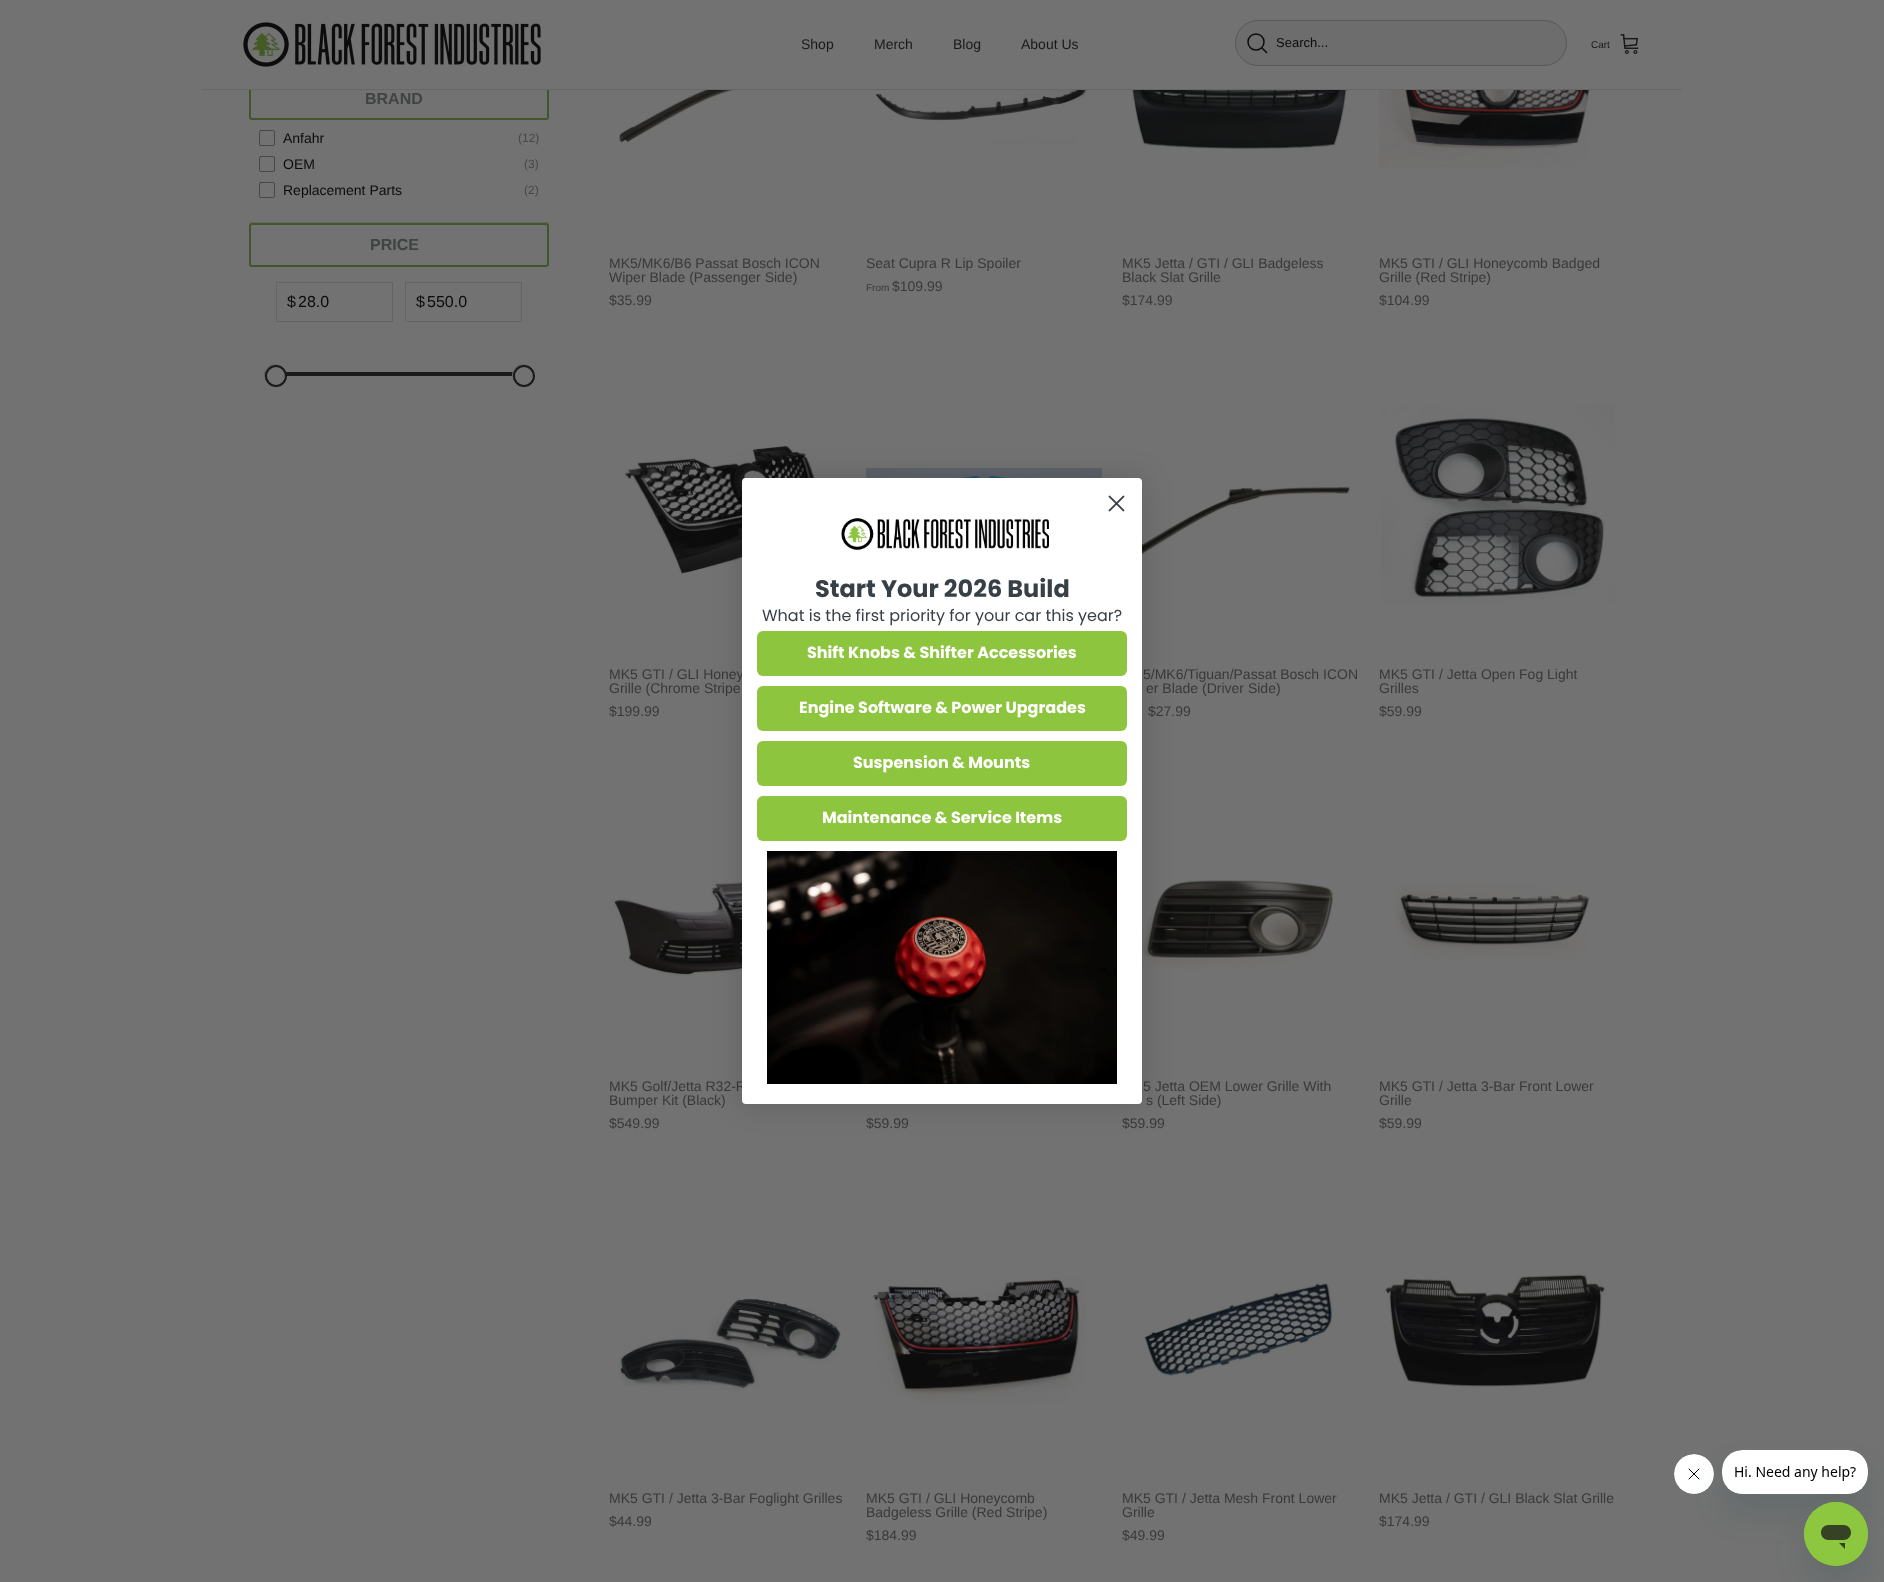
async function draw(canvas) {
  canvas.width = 1884;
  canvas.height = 1582;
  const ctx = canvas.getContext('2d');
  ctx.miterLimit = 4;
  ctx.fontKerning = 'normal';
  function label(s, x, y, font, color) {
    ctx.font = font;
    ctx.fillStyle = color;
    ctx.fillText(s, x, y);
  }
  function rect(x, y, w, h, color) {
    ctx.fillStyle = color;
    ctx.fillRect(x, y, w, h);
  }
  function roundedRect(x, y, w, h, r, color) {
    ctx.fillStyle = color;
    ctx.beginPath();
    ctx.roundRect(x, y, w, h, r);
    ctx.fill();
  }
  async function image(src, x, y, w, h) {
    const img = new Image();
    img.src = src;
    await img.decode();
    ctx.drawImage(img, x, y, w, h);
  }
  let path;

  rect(0, 0, 1884, 1582, '#727272');
  ctx.beginPath();
  ctx.roundRect(250, 78, 298, 41, 2);
  ctx.strokeStyle = '#43552a';
  ctx.lineWidth = 2;
  ctx.stroke();
  rect(249, 77, 300, 13, '#727272');
  ctx.fillStyle = '#6d6d6d';
  ctx.beginPath();
  ctx.roundRect(1235.5, 20.5, 331, 45, 22.5);
  ctx.fill();
  ctx.strokeStyle = '#585858';
  ctx.lineWidth = 1;
  ctx.stroke();
  ctx.beginPath();
  ctx.arc(1256, 42, 8, 0, 2 * Math.PI);
  ctx.strokeStyle = '#0c0c0c';
  ctx.lineWidth = 1.5;
  ctx.stroke();
  path = new Path2D('M1262 48L1266.5 52.5');
  ctx.lineCap = 'square';
  ctx.stroke(path);
  label('Search...', 1276, 47, '13px Liberation Sans', '#0c0c0c');
  rect(202, 89, 1480, 1, '#666');
  await image('assets/img1.png', 243, 22, 298, 45);
  label('Shop', 801, 49, '14px Liberation Sans', '#191a1a');
  label('Merch', 874, 49, '14px Liberation Sans', '#191a1a');
  label('Blog', 953, 49, '14px Liberation Sans', '#191a1a');
  label('About Us', 1021, 49, '14px Liberation Sans', '#191a1a');
  label('Cart', 1591, 48, '10px Liberation Sans', '#191a1a');
  await image('assets/img2.png', 1620, 34, 19, 20);
  label('BRAND', 365, 104, 'bold 16px Liberation Sans', '#404243');
  ctx.beginPath();
  ctx.roundRect(259.5, 130.5, 15, 15, 1.5);
  ctx.strokeStyle = '#474747';
  ctx.lineWidth = 1;
  ctx.stroke();
  label('Anfahr', 283, 143, '14px Liberation Sans', '#0c0c0c');
  label('(12)', 518, 142, '12px Liberation Sans', '#474747');
  ctx.beginPath();
  ctx.roundRect(259.5, 156.5, 15, 15, 1.5);
  ctx.stroke();
  label('OEM', 283, 169, '14px Liberation Sans', '#0c0c0c');
  label('(3)', 524, 168, '12px Liberation Sans', '#474747');
  ctx.beginPath();
  ctx.roundRect(259.5, 182.5, 15, 15, 1.5);
  ctx.stroke();
  label('Replacement Parts', 283, 195, '14px Liberation Sans', '#0c0c0c');
  label('(2)', 524, 194, '12px Liberation Sans', '#474747');
  rect(249, 222, 300, 1, '#666');
  ctx.beginPath();
  ctx.roundRect(250, 224, 298, 42, 2);
  ctx.strokeStyle = '#43552a';
  ctx.lineWidth = 2;
  ctx.stroke();
  label('PRICE', 370, 250, 'bold 16px Liberation Sans', '#404243');
  ctx.strokeStyle = '#646464';
  ctx.lineWidth = 1;
  ctx.strokeRect(276.5, 282.5, 116, 39);
  label('$', 287, 307, '16px Liberation Sans', '#0c0c0c');
  label('28.0', 298, 307, '16px Liberation Sans', '#0c0c0c');
  ctx.strokeRect(405.5, 282.5, 116, 39);
  label('$', 416, 307, '16px Liberation Sans', '#0c0c0c');
  label('550.0', 427, 307, '16px Liberation Sans', '#0c0c0c');
  roundedRect(264, 372, 270, 4, 2, '#1a1a1a');
  ctx.fillStyle = '#666';
  ctx.beginPath();
  ctx.arc(275, 375, 10.5, 0, 2 * Math.PI);
  ctx.fill();
  ctx.strokeStyle = '#666';
  ctx.stroke();
  ctx.fillStyle = '#727272';
  ctx.beginPath();
  ctx.arc(276, 376, 10, 0, 2 * Math.PI);
  ctx.fill();
  ctx.strokeStyle = '#1a1a1a';
  ctx.lineWidth = 2;
  ctx.stroke();
  ctx.fillStyle = '#666';
  ctx.beginPath();
  ctx.arc(523, 375, 10.5, 0, 2 * Math.PI);
  ctx.fill();
  ctx.strokeStyle = '#666';
  ctx.lineWidth = 1;
  ctx.stroke();
  ctx.fillStyle = '#727272';
  ctx.beginPath();
  ctx.arc(524, 376, 10, 0, 2 * Math.PI);
  ctx.fill();
  ctx.strokeStyle = '#1a1a1a';
  ctx.lineWidth = 2;
  ctx.stroke();
  await image('assets/img3.png', 619, 90, 215, 53);
  label('MK5/MK6/B6 Passat Bosch ICON', 609, 268, '14px Liberation Sans', '#38393b');
  label('Wiper Blade (Passenger Side)', 609, 282, '14px Liberation Sans', '#38393b');
  label('$35.99', 609, 305, '14px Liberation Sans', '#38393b');
  await image('assets/img4.png', 875, 90, 215, 55);
  label('Seat Cupra R Lip Spoiler', 866, 268, '14px Liberation Sans', '#38393b');
  label('From', 866, 291, '10px Liberation Sans', '#38393b');
  label('$109.99', 892, 291, '14px Liberation Sans', '#38393b');
  await image('assets/img5.png', 1124, 90, 232, 64);
  label('MK5 Jetta / GTI / GLI Badgeless', 1122, 268, '14px Liberation Sans', '#38393b');
  label('Black Slat Grille', 1122, 282, '14px Liberation Sans', '#38393b');
  label('$174.99', 1122, 305, '14px Liberation Sans', '#38393b');
  await image('assets/img6.png', 1379, 90, 218, 79);
  label('MK5 GTI / GLI Honeycomb Badged', 1379, 268, '14px Liberation Sans', '#38393b');
  label('Grille (Red Stripe)', 1379, 282, '14px Liberation Sans', '#38393b');
  label('$104.99', 1379, 305, '14px Liberation Sans', '#38393b');
  await image('assets/img7.png', 866, 468, 236, 10);
  await image('assets/img8.png', 624, 446, 195, 128);
  label('MK5 GTI / GLI Honey', 609, 679, '14px Liberation Sans', '#38393b');
  label('Grille (Chrome Stripe', 609, 693, '14px Liberation Sans', '#38393b');
  label('$199.99', 609, 716, '14px Liberation Sans', '#38393b');
  await image('assets/img9.png', 1142, 487, 209, 72);
  label('5/MK6/Tiguan/Passat Bosch ICON', 1143, 679, '14px Liberation Sans', '#38393b');
  label('er Blade (Driver Side)', 1146, 693, '14px Liberation Sans', '#38393b');
  label('$27.99', 1148, 716, '14px Liberation Sans', '#38393b');
  await image('assets/img10.png', 1381, 405, 234, 199);
  label('MK5 GTI / Jetta Open Fog Light', 1379, 679, '14px Liberation Sans', '#38393b');
  label('Grilles', 1379, 693, '14px Liberation Sans', '#38393b');
  label('$59.99', 1379, 716, '14px Liberation Sans', '#38393b');
  await image('assets/img11.png', 613, 867, 129, 109);
  label('MK5 Golf/Jetta R32-R', 609, 1091, '14px Liberation Sans', '#38393b');
  label('Bumper Kit (Black)', 609, 1105, '14px Liberation Sans', '#38393b');
  label('$549.99', 609, 1128, '14px Liberation Sans', '#38393b');
  label('$59.99', 866, 1128, '14px Liberation Sans', '#38393b');
  await image('assets/img12.png', 1142, 876, 192, 94);
  label('5 Jetta OEM Lower Grille With', 1143, 1091, '14px Liberation Sans', '#38393b');
  label('s (Left Side)', 1146, 1105, '14px Liberation Sans', '#38393b');
  label('$59.99', 1122, 1128, '14px Liberation Sans', '#38393b');
  await image('assets/img13.png', 1395, 883, 195, 78);
  label('MK5 GTI / Jetta 3-Bar Front Lower', 1379, 1091, '14px Liberation Sans', '#38393b');
  label('Grille', 1379, 1105, '14px Liberation Sans', '#38393b');
  label('$59.99', 1379, 1128, '14px Liberation Sans', '#38393b');
  await image('assets/img14.png', 619, 1292, 222, 99);
  label('MK5 GTI / Jetta 3-Bar Foglight Grilles', 609, 1503, '14px Liberation Sans', '#38393b');
  label('$44.99', 609, 1526, '14px Liberation Sans', '#38393b');
  await image('assets/img15.png', 873, 1277, 213, 126);
  label('MK5 GTI / GLI Honeycomb', 866, 1503, '14px Liberation Sans', '#38393b');
  label('Badgeless Grille (Red Stripe)', 866, 1517, '14px Liberation Sans', '#38393b');
  label('$184.99', 866, 1540, '14px Liberation Sans', '#38393b');
  await image('assets/img16.png', 1144, 1283, 190, 93);
  label('MK5 GTI / Jetta Mesh Front Lower', 1122, 1503, '14px Liberation Sans', '#38393b');
  label('Grille', 1122, 1517, '14px Liberation Sans', '#38393b');
  label('$49.99', 1122, 1540, '14px Liberation Sans', '#38393b');
  await image('assets/img17.png', 1383, 1274, 224, 122);
  label('MK5 Jetta / GTI / GLI Black Slat Grille', 1379, 1503, '14px Liberation Sans', '#38393b');
  label('$174.99', 1379, 1526, '14px Liberation Sans', '#38393b');
  ctx.fillStyle = '#00000026';
  ctx.filter = 'blur(15px)';
  ctx.beginPath();
  ctx.roundRect(742, 478, 400, 626, 4);
  ctx.fill();
  ctx.filter = 'none';
  roundedRect(742, 478, 400, 626, 4, '#fff');
  await image('assets/img18.png', 1108, 495, 17, 17);
  await image('assets/img19.png', 841, 518, 208, 32);
  label('Start Your 2026 Build', 815, 597, 'bold 24px Poppins', '#373f47');
  label('What is the first priority for your car this year?', 762, 621, '16px Poppins', '#373f47');
  roundedRect(757, 631, 370, 45, 6, '#8dc53e');
  label('Shift Knobs & Shifter Accessories', 807, 658, 'bold 16px Poppins', '#fff');
  roundedRect(757, 686, 370, 45, 6, '#8dc53e');
  label('Engine Software & Power Upgrades', 799, 713, 'bold 16px Poppins', '#fff');
  roundedRect(757, 741, 370, 45, 6, '#8dc53e');
  label('Suspension & Mounts', 853, 768, 'bold 16px Poppins', '#fff');
  roundedRect(757, 796, 370, 45, 6, '#8dc53e');
  label('Maintenance & Service Items', 822, 823, 'bold 16px Poppins', '#fff');
  await image('assets/img20.png', 767, 851, 350, 233);
  await image('assets/img22.png', 1674, 1454, 40, 40);
  ctx.fillStyle = '#17494d26';
  ctx.filter = 'blur(15px)';
  ctx.beginPath();
  ctx.roundRect(1722, 1470, 146, 44, 20);
  ctx.fill();
  ctx.filter = 'none';
  await image('assets/img21.png', 1722, 1450, 146, 44);
  ctx.filter = 'blur(15px)';
  ctx.beginPath();
  ctx.roundRect(1804, 1522, 64, 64, 32);
  ctx.fill();
  ctx.filter = 'none';
  await image('assets/img23.png', 1804, 1502, 64, 64);
}

draw(document.querySelector('canvas'));
